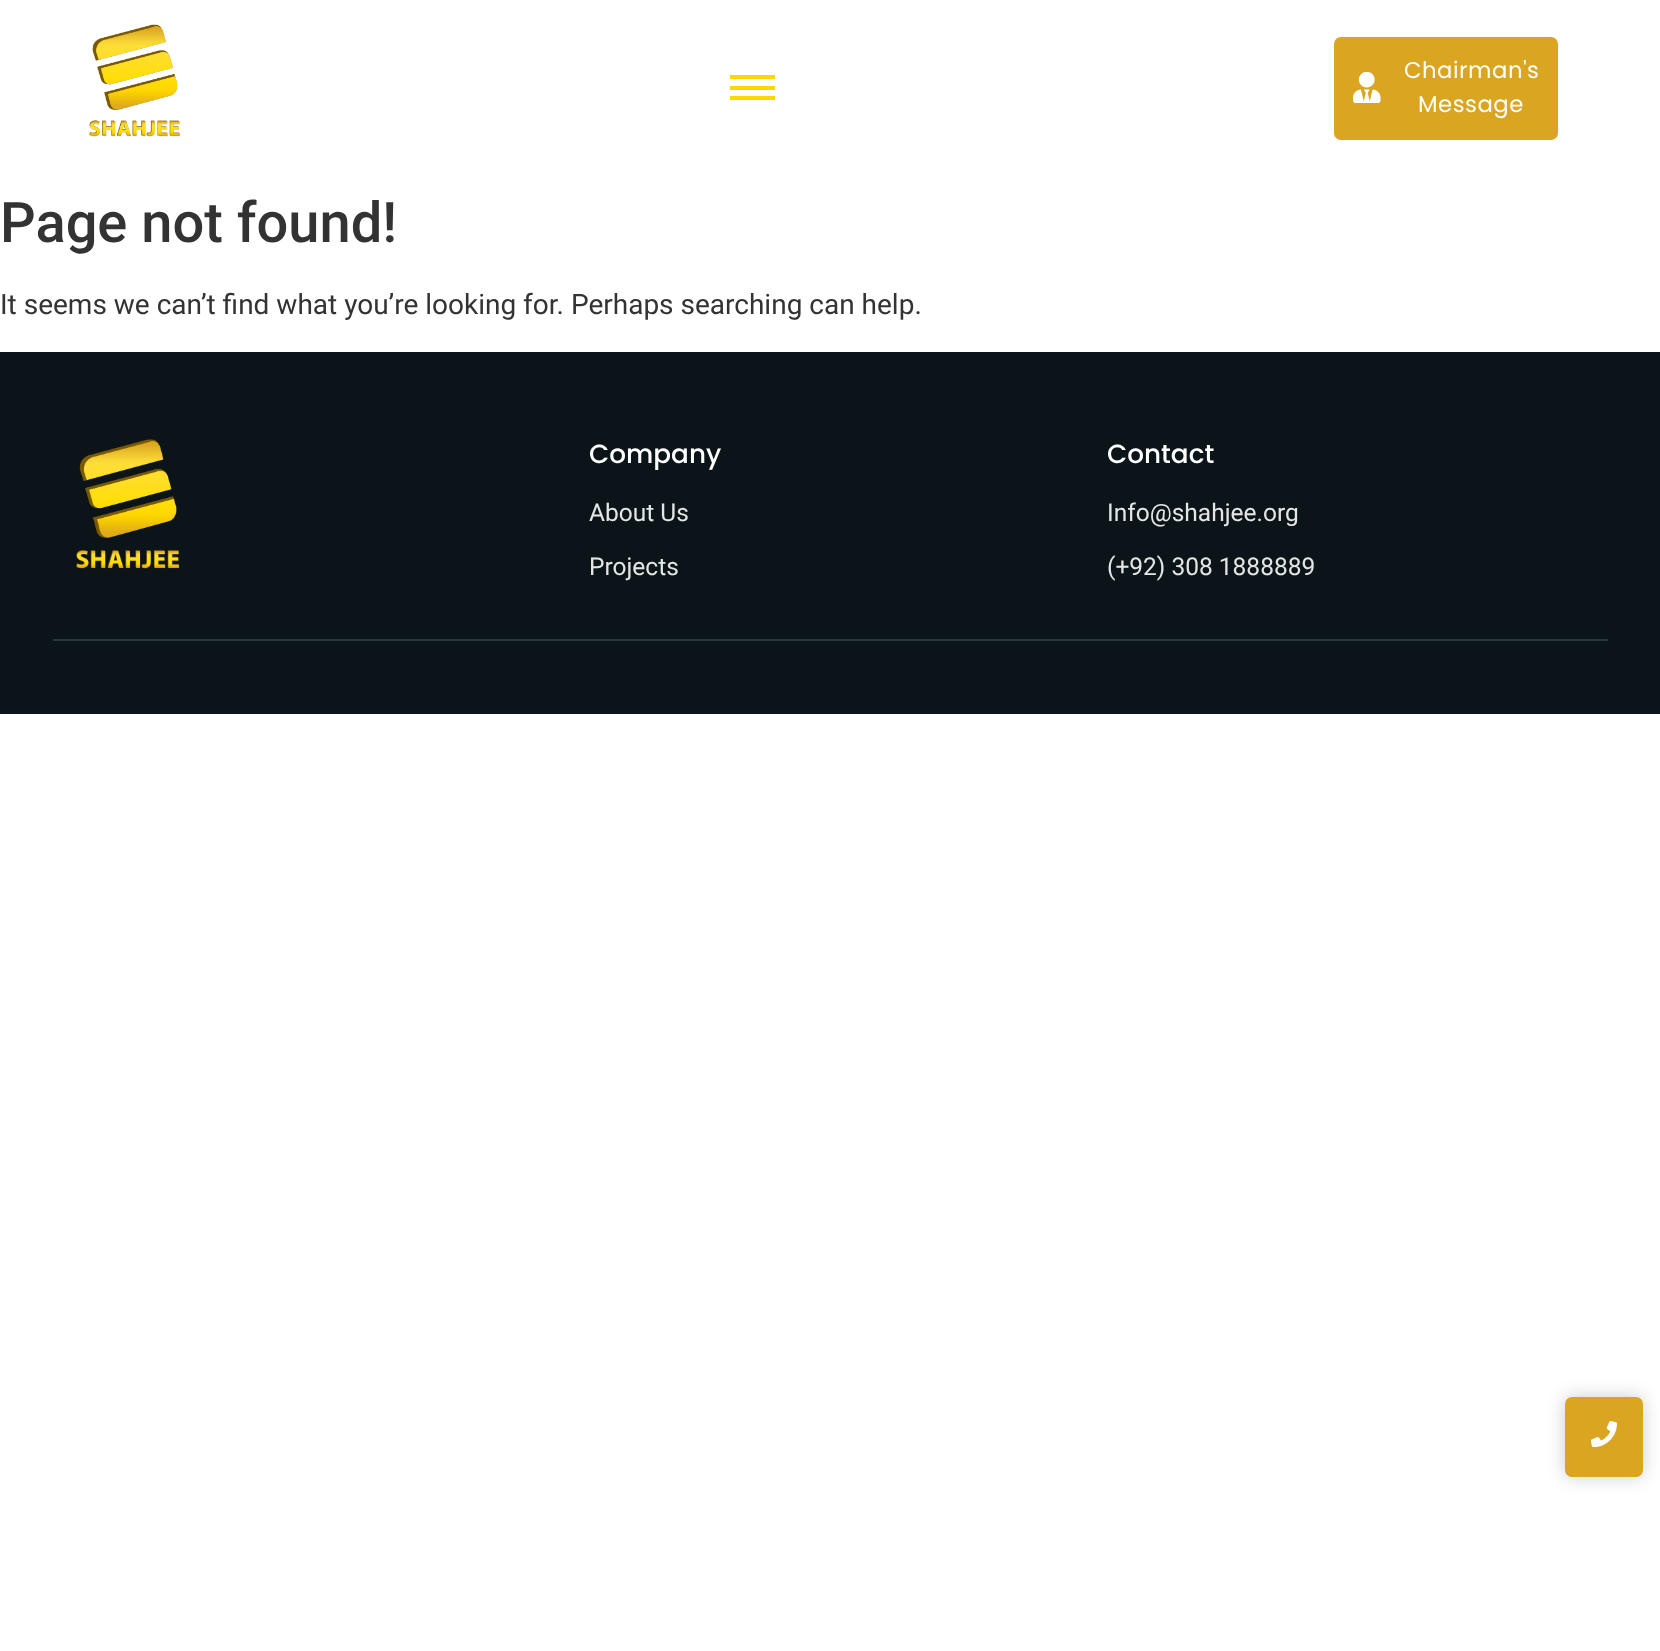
async function draw(canvas) {
  canvas.width = 1660;
  canvas.height = 1651;
  const ctx = canvas.getContext('2d');
  ctx.miterLimit = 4;
  ctx.fontKerning = 'normal';
  function label(s, x, y, font, color) {
    ctx.font = font;
    ctx.fillStyle = color;
    ctx.fillText(s, x, y);
  }
  function rect(x, y, w, h, color) {
    ctx.fillStyle = color;
    ctx.fillRect(x, y, w, h);
  }
  function roundedRect(x, y, w, h, r, color) {
    ctx.fillStyle = color;
    ctx.beginPath();
    ctx.roundRect(x, y, w, h, r);
    ctx.fill();
  }
  async function image(src, x, y, w, h) {
    const img = new Image();
    img.src = src;
    await img.decode();
    ctx.drawImage(img, x, y, w, h);
  }

  rect(0, 0, 1660, 1651, '#fff');
  await image('assets/img1.png', 89, 24, 91, 113);
  rect(730, 75, 45, 4, '#ffd700');
  rect(730, 86, 45, 4, '#ffd700');
  rect(730, 96, 45, 4, '#ffd700');
  roundedRect(1334, 37, 224, 103, 7, '#daa520');
  await image('assets/img2.png', 1352, 72, 29, 31);
  ctx.letterSpacing = '0.5px';
  label('Chairman\'s', 1404, 78, '22.75px Poppins', '#fff');
  label('Message', 1418, 112, '22.75px Poppins', '#fff');
  ctx.letterSpacing = '0px';
  label('Page not found!', 0, 242, '500 56px Roboto', '#333');
  label('It seems we can’t find what you’re looking for. Perhaps searching can help.', 0, 314, '28px Roboto', '#333');
  rect(0, 352, 1660, 362, '#0b1418');
  await image('assets/img3.png', 76, 439, 104, 130);
  label('Company', 589, 463, '500 26.25px Poppins', '#fff');
  label('About Us', 589, 521, '24.5px Roboto', '#e5e5e5');
  label('Projects', 589, 575, '24.5px Roboto', '#e5e5e5');
  label('Contact', 1107, 463, '500 26.25px Poppins', '#fff');
  label('Info@shahjee.org', 1107, 521, '24.5px Roboto', '#e5e5e5');
  label('(+92) 308 1888889', 1107, 575, '24.5px Roboto', '#e5e5e5');
  rect(53, 639, 1555, 2, '#2a373c');
  ctx.fillStyle = '#00000033';
  ctx.filter = 'blur(9px)';
  ctx.beginPath();
  ctx.roundRect(1565, 1397, 78, 80, 7);
  ctx.fill();
  ctx.filter = 'none';
  roundedRect(1565, 1397, 78, 80, 7, '#daa520');
  await image('assets/img4.png', 1591, 1421, 26, 26);
}

draw(document.querySelector('canvas'));
